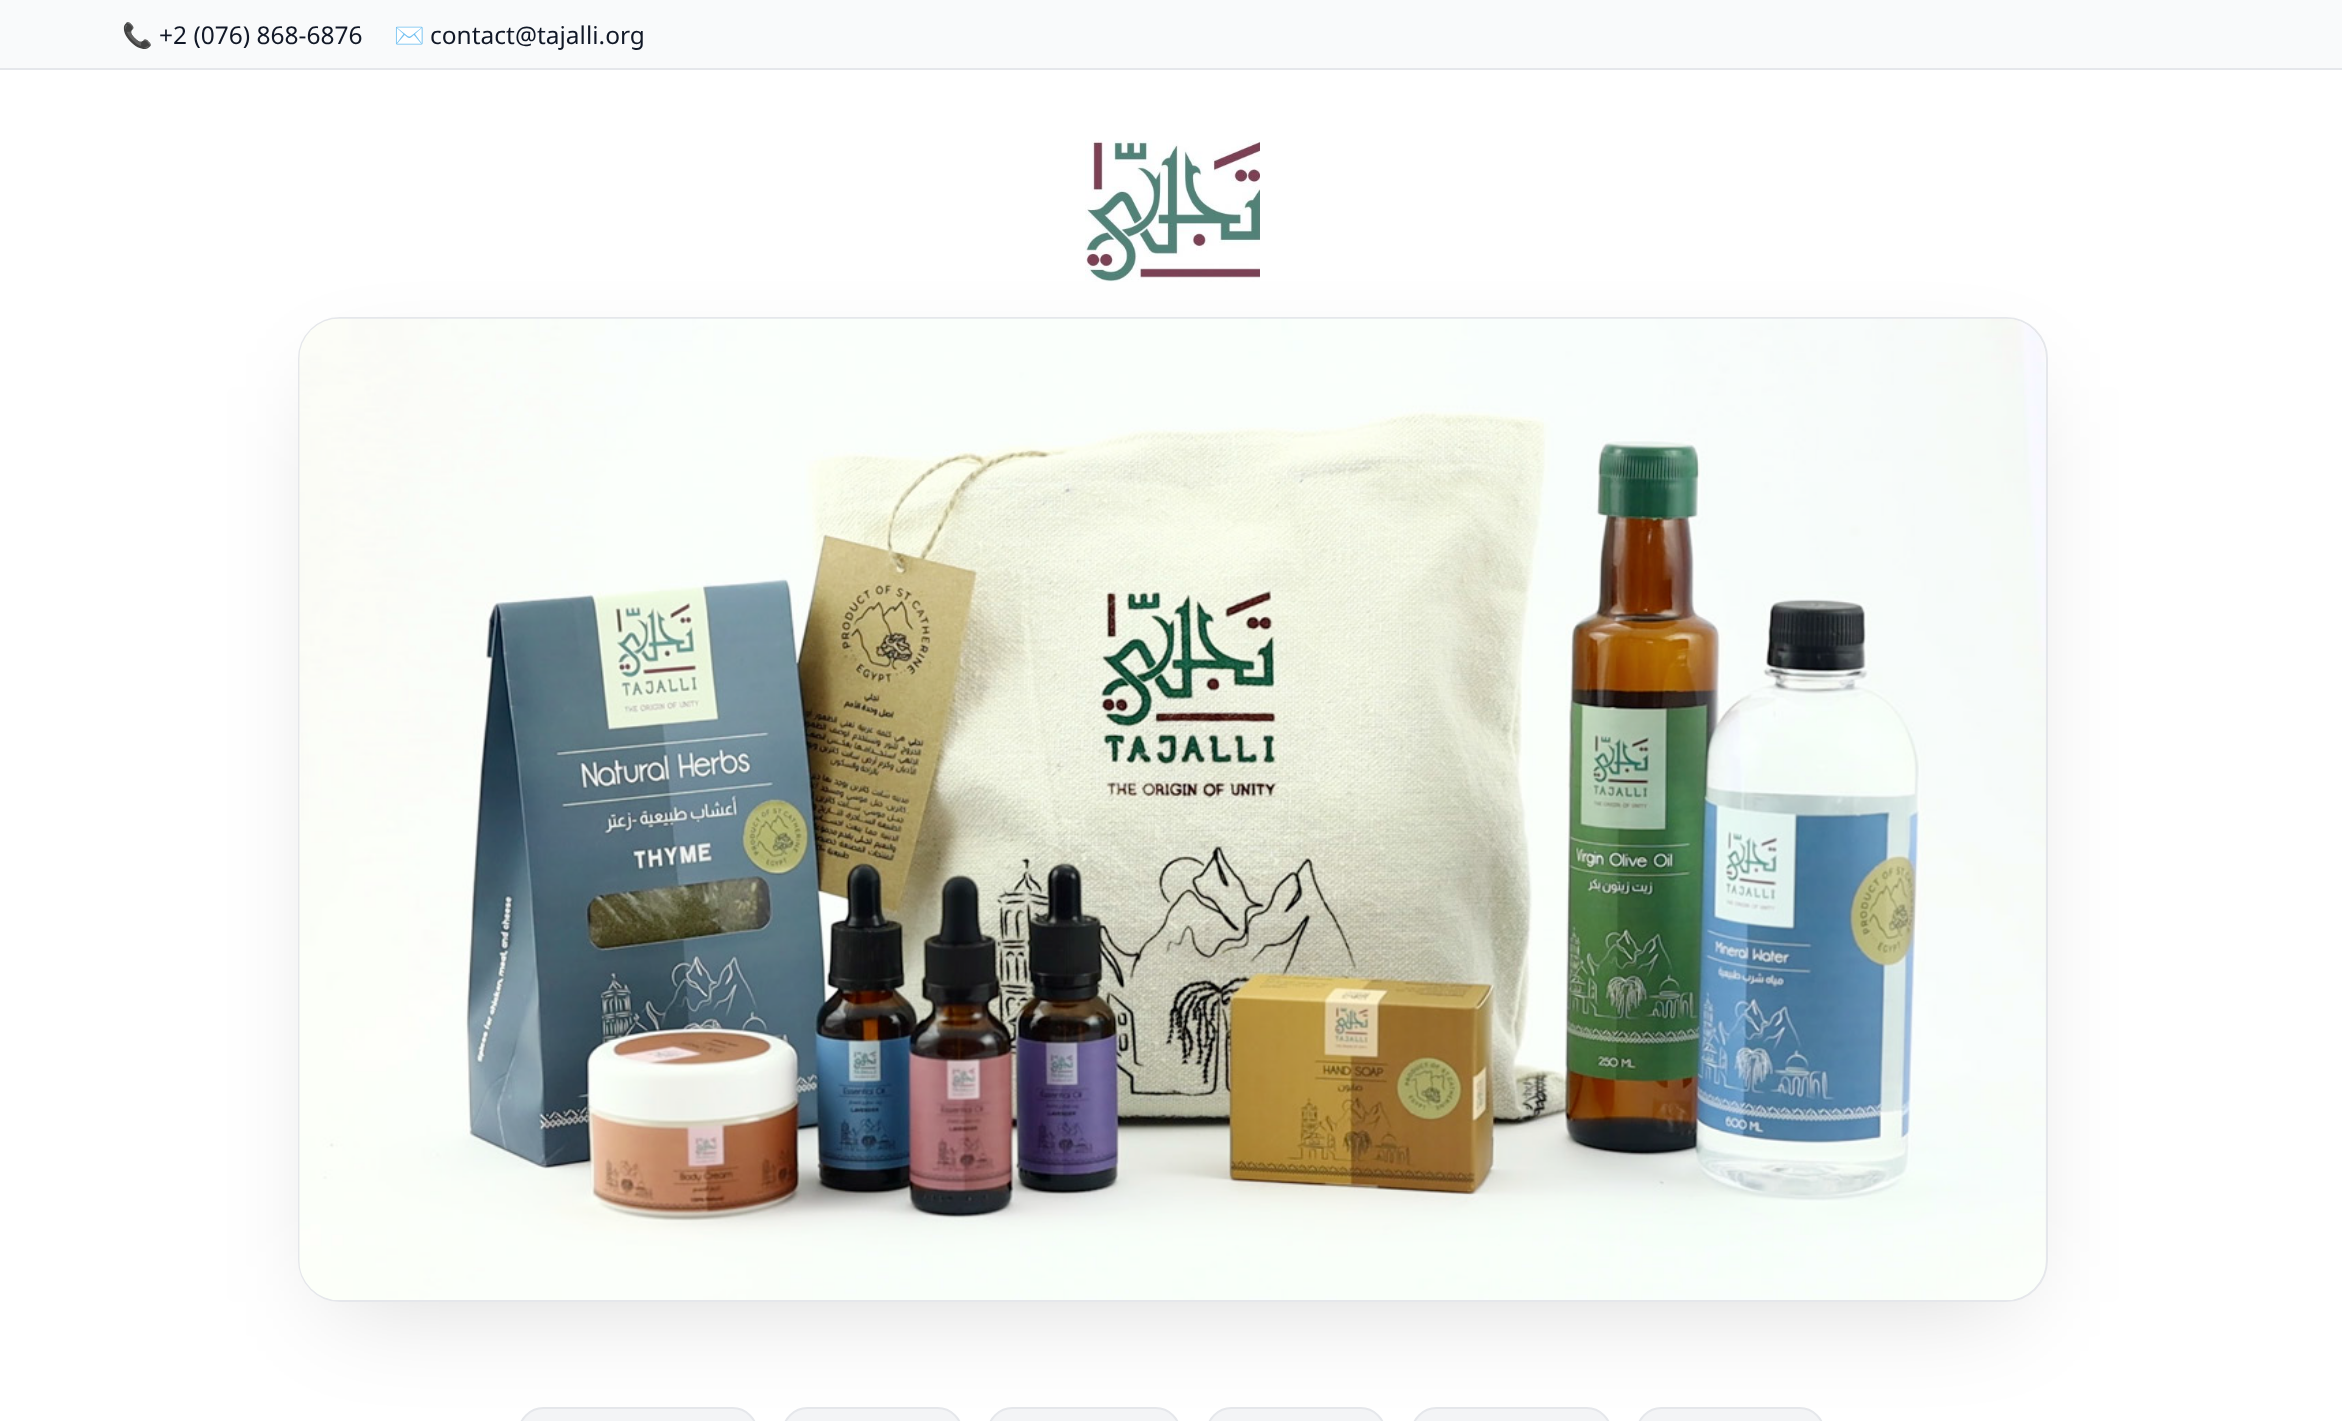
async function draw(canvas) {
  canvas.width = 2342;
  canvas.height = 1421;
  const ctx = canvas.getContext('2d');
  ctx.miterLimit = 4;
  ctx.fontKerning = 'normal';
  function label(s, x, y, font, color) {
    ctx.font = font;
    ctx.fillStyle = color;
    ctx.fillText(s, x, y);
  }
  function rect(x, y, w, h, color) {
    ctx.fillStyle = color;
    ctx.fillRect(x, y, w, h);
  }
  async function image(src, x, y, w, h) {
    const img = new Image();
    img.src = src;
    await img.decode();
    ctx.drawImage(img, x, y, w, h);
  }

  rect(0, 0, 2342, 1421, '#fff');
  rect(0, 0, 2342, 68, '#f9fafb');
  rect(0, 68, 2342, 2, '#e5e7eb');
  label('📞', 122, 44, '24.5px Noto Color Emoji', '#6b7280');
  label('+2 (076) 868-6876', 159, 44, '24.5px Noto Sans', '#111827');
  label('✉️', 394, 44, '24.5px Noto Color Emoji', '#6b7280');
  label('contact@tajalli.org', 430, 44, '24.5px Noto Sans', '#111827');
  await image('assets/img1.png', 1085, 140, 175, 142);
  ctx.fillStyle = '#f3f4f6';
  ctx.beginPath();
  ctx.roundRect(519, 1408, 238, 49, 34);
  ctx.fill();
  ctx.strokeStyle = '#e5e7eb';
  ctx.lineWidth = 2;
  ctx.stroke();
  ctx.beginPath();
  ctx.roundRect(783, 1408, 179, 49, 34);
  ctx.fill();
  ctx.stroke();
  ctx.beginPath();
  ctx.roundRect(988, 1408, 192, 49, 34);
  ctx.fill();
  ctx.stroke();
  ctx.beginPath();
  ctx.roundRect(1207, 1408, 178, 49, 34);
  ctx.fill();
  ctx.stroke();
  ctx.beginPath();
  ctx.roundRect(1412, 1408, 199, 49, 34);
  ctx.fill();
  ctx.stroke();
  ctx.beginPath();
  ctx.roundRect(1637, 1408, 187, 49, 34);
  ctx.fill();
  ctx.stroke();
  ctx.fillStyle = '#00000026';
  ctx.filter = 'blur(52.5px)';
  ctx.beginPath();
  ctx.roundRect(333, 387, 1680, 915, 7);
  ctx.fill();
  ctx.filter = 'none';
  ctx.beginPath();
  ctx.roundRect(299, 318, 1748, 983, 41);
  ctx.stroke();
  await image('assets/img2.png', 299, 318, 1747, 982);
}

draw(document.querySelector('canvas'));
